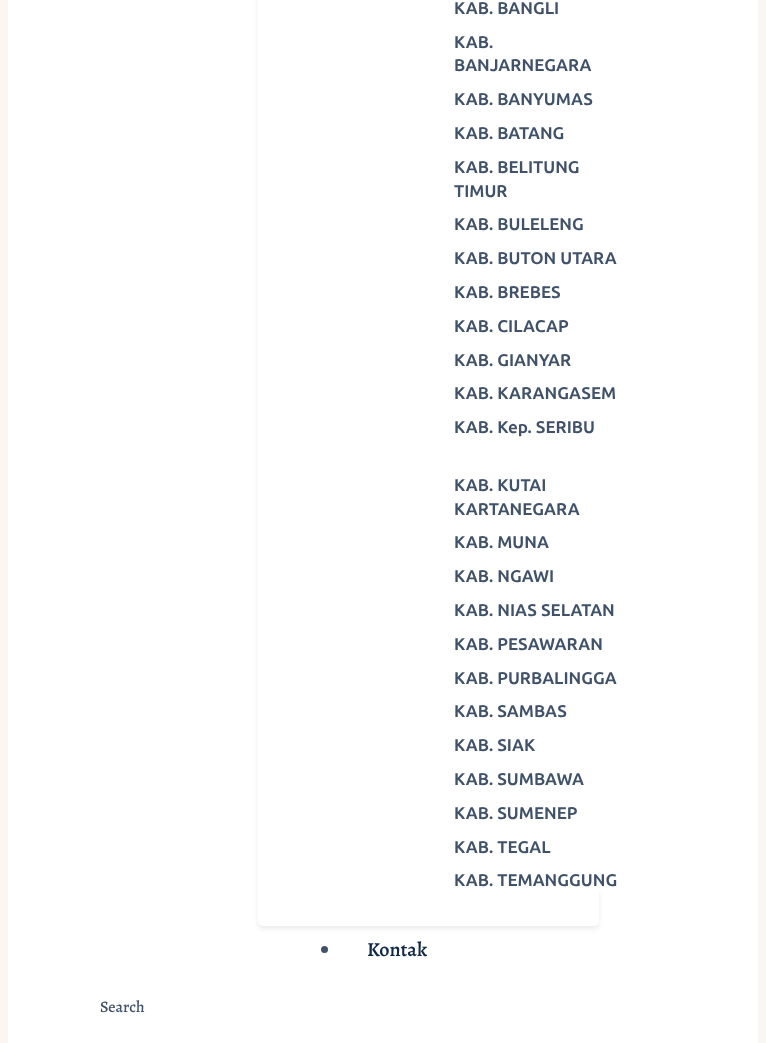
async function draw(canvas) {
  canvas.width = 766;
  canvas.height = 1043;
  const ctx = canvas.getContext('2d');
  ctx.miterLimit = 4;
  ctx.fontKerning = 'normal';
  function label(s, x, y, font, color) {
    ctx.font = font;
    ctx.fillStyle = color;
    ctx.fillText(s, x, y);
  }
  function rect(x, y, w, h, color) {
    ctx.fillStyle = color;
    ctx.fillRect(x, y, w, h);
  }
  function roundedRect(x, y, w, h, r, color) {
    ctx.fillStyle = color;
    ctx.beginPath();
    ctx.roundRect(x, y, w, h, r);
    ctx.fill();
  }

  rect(0, 0, 766, 1043, '#fbf6f2');
  rect(8, 0, 750, 1043, '#fff');
  ctx.fillStyle = '#4646461a';
  ctx.filter = 'blur(2.5px)';
  ctx.beginPath();
  ctx.roundRect(258, -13, 341, 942, 5);
  ctx.fill();
  ctx.filter = 'none';
  roundedRect(258, -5, 341, 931, 5, '#fff');
  roundedRect(454, -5, 167, 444, 5, '#fff');
  label('KAB. BANGLI', 454, 14, 'bold 17px Ubuntu', '#40526a');
  label('KAB.', 454, 48, 'bold 17px Ubuntu', '#40526a');
  label('BANJARNEGARA', 454, 71, 'bold 17px Ubuntu', '#40526a');
  label('KAB. BANYUMAS', 454, 105, 'bold 17px Ubuntu', '#40526a');
  label('KAB. BATANG', 454, 139, 'bold 17px Ubuntu', '#40526a');
  label('KAB. BELITUNG', 454, 173, 'bold 17px Ubuntu', '#40526a');
  label('TIMUR', 454, 197, 'bold 17px Ubuntu', '#40526a');
  label('KAB. BULELENG', 454, 230, 'bold 17px Ubuntu', '#40526a');
  label('KAB. BUTON UTARA', 454, 264, 'bold 17px Ubuntu', '#40526a');
  label('KAB. BREBES', 454, 298, 'bold 17px Ubuntu', '#40526a');
  label('KAB. CILACAP', 454, 332, 'bold 17px Ubuntu', '#40526a');
  label('KAB. GIANYAR', 454, 366, 'bold 17px Ubuntu', '#40526a');
  label('KAB. KARANGASEM', 454, 399, 'bold 17px Ubuntu', '#40526a');
  label('KAB. Kep. SERIBU', 454, 433, 'bold 17px Ubuntu', '#40526a');
  roundedRect(454, 439, 167, 453, 5, '#fff');
  label('KAB. KUTAI', 454, 491, 'bold 17px Ubuntu', '#40526a');
  label('KARTANEGARA', 454, 515, 'bold 17px Ubuntu', '#40526a');
  label('KAB. MUNA', 454, 548, 'bold 17px Ubuntu', '#40526a');
  label('KAB. NGAWI', 454, 582, 'bold 17px Ubuntu', '#40526a');
  label('KAB. NIAS SELATAN', 454, 616, 'bold 17px Ubuntu', '#40526a');
  label('KAB. PESAWARAN', 454, 650, 'bold 17px Ubuntu', '#40526a');
  label('KAB. PURBALINGGA', 454, 684, 'bold 17px Ubuntu', '#40526a');
  label('KAB. SAMBAS', 454, 717, 'bold 17px Ubuntu', '#40526a');
  label('KAB. SIAK', 454, 751, 'bold 17px Ubuntu', '#40526a');
  label('KAB. SUMBAWA', 454, 785, 'bold 17px Ubuntu', '#40526a');
  label('KAB. SUMENEP', 454, 819, 'bold 17px Ubuntu', '#40526a');
  label('KAB. TEGAL', 454, 853, 'bold 17px Ubuntu', '#40526a');
  label('KAB. TEMANGGUNG', 454, 886, 'bold 17px Ubuntu', '#40526a');
  ctx.beginPath();
  ctx.arc(324.5, 949.5, 3.5, 0, 2 * Math.PI);
  ctx.fill();
  label('Kontak', 367, 956, '600 20px Alegreya', '#122947');
  label('Search', 100, 1012, '500 16px Alegreya', '#40526a');
}

draw(document.querySelector('canvas'));
